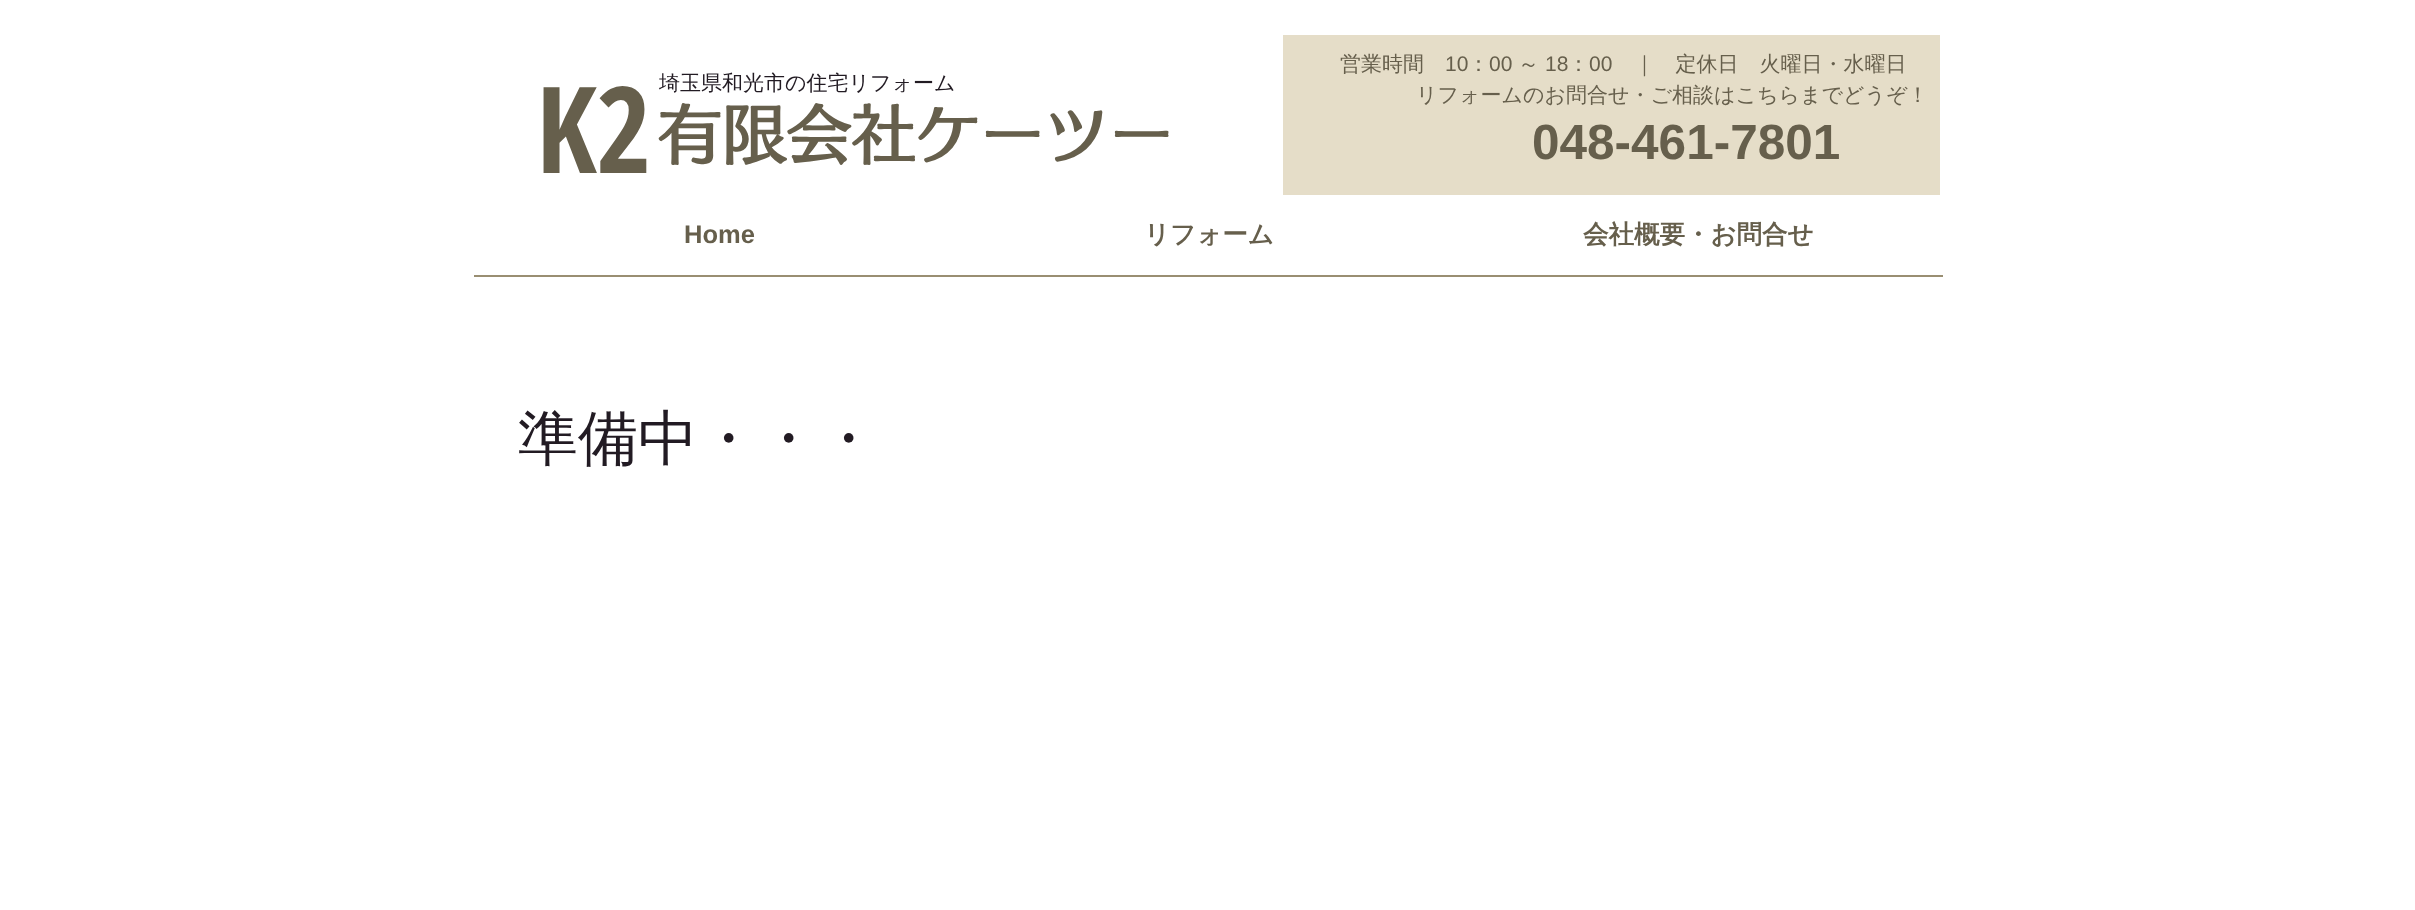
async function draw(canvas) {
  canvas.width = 2415;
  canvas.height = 910;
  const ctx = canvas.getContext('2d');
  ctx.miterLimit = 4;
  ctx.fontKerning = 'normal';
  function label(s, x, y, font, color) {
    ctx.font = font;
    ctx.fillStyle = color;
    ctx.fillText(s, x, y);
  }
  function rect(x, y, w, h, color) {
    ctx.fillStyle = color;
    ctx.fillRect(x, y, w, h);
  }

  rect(0, 0, 2415, 910, '#fff');
  rect(1283, 35, 657, 160, '#e5ddc8');
  label('営業時間', 1340, 71, '500 21px WenQuanYi Zen Hei', '#665f4c');
  label('10', 1445, 71, '21px Liberation Sans', '#665f4c');
  label('：', 1468, 71, '500 21px WenQuanYi Zen Hei', '#665f4c');
  label('00', 1489, 71, '21px Liberation Sans', '#665f4c');
  label('～', 1518, 71, '500 21px WenQuanYi Zen Hei', '#665f4c');
  label('18', 1545, 71, '21px Liberation Sans', '#665f4c');
  label('：', 1568, 71, '500 21px WenQuanYi Zen Hei', '#665f4c');
  label('00', 1589, 71, '21px Liberation Sans', '#665f4c');
  label('｜　定休日　火曜日・水曜日', 1634, 71, '500 21px WenQuanYi Zen Hei', '#665f4c');
  label('埼玉県和光市の住宅リフォーム', 659, 90, '500 21px WenQuanYi Zen Hei', '#221b23');
  label('リフォームのお問合せ・ご相談はこちらまでどうぞ！', 1416, 102, '500 21px WenQuanYi Zen Hei', '#665f4c');
  ctx.letterSpacing = '-1px';
  label('K2', 536, 173, 'bold 120px Open Sans Condensed', '#665f4c');
  ctx.letterSpacing = '0px';
  label('有限会社ケーツー', 657, 159, 'bold 64.5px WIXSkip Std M', '#665f4c');
  label('048-461-7801', 1532, 159, 'bold 49.5px Liberation Sans', '#665f4c');
  label('Home', 684, 243, 'bold 25.5px Liberation Sans', '#665f4c');
  label('リフォーム', 1144, 243, 'bold 25.5px WenQuanYi Zen Hei', '#665f4c');
  label('会社概要・お問合せ', 1583, 243, 'bold 25.5px WenQuanYi Zen Hei', '#665f4c');
  rect(474, 275, 1469, 2, '#998e72');
  label('準備中・・・', 518, 459, '500 60px WenQuanYi Zen Hei', '#221b23');
}

draw(document.querySelector('canvas'));
